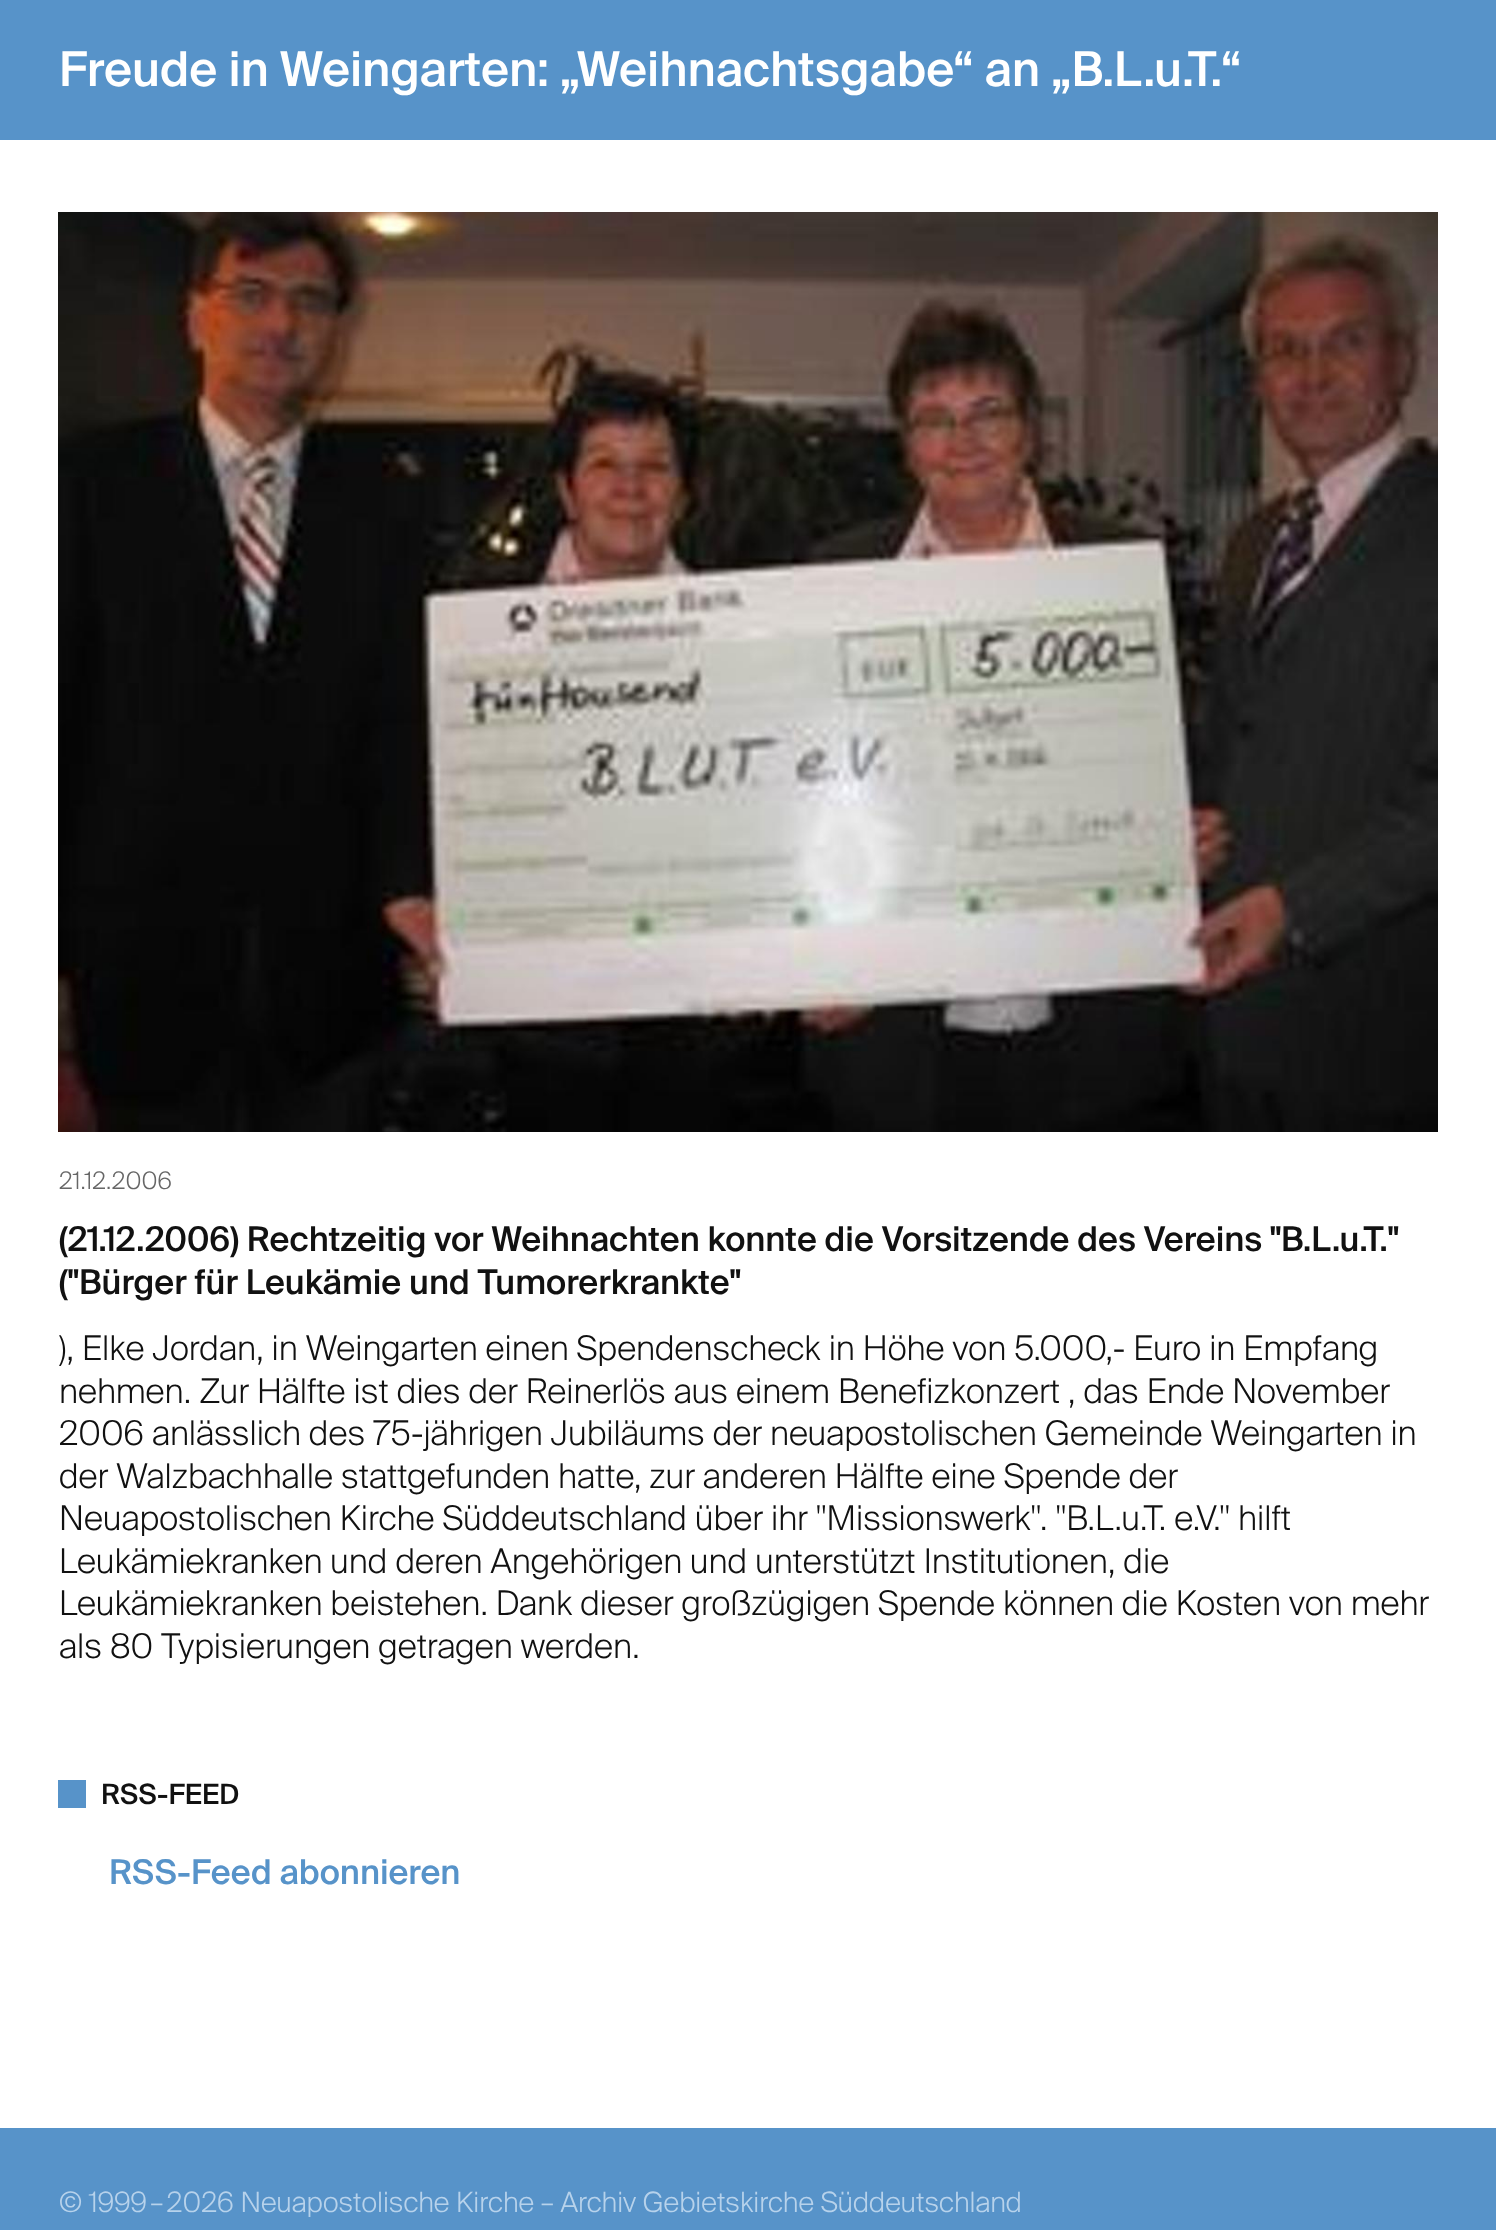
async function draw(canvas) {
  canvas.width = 1496;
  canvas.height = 2230;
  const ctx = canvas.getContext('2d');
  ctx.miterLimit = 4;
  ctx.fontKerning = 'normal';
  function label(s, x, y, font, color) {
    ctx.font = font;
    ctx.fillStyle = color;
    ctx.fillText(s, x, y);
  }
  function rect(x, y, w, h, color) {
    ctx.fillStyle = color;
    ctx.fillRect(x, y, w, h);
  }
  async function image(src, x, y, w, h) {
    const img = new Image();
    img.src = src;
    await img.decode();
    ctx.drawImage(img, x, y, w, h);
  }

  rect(0, 0, 1496, 2230, '#fff');
  rect(0, 0, 1496, 140, '#5793c9');
  label('Freude in Weingarten: „Weihnachtsgabe“ an „B.L.u.T.“', 59, 86, '500 48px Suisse', '#fff');
  await image('assets/img1.png', 58, 212, 1380, 920);
  label('21.12.2006', 59, 1189, '300 24px Suisse', '#666');
  label('(21.12.2006) Rechtzeitig vor Weihnachten konnte die Vorsitzende des Vereins "B.L.u.T."', 59, 1251, '500 34px Suisse', '#111');
  label('("Bürger für Leukämie und Tumorerkrankte"', 59, 1294, '500 34px Suisse', '#111');
  label('), Elke Jordan, in Weingarten einen Spendenscheck in Höhe von 5.000,- Euro in Empfang', 59, 1360, '300 34px Suisse', '#111');
  label('nehmen. Zur Hälfte ist dies der Reinerlös aus einem Benefizkonzert , das Ende November', 59, 1403, '300 34px Suisse', '#111');
  label('2006 anlässlich des 75-jährigen Jubiläums der neuapostolischen Gemeinde Weingarten in', 59, 1445, '300 34px Suisse', '#111');
  label('der Walzbachhalle stattgefunden hatte, zur anderen Hälfte eine Spende der', 59, 1488, '300 34px Suisse', '#111');
  label('Neuapostolischen Kirche Süddeutschland über ihr "Missionswerk". "B.L.u.T. e.V." hilft', 59, 1530, '300 34px Suisse', '#111');
  label('Leukämiekranken und deren Angehörigen und unterstützt Institutionen, die', 59, 1573, '300 34px Suisse', '#111');
  label('Leukämiekranken beistehen. Dank dieser großzügigen Spende können die Kosten von mehr', 59, 1615, '300 34px Suisse', '#111');
  label('als 80 Typisierungen getragen werden.', 59, 1658, '300 34px Suisse', '#111');
  rect(58, 1780, 28, 28, '#5793c9');
  label('RSS-FEED', 101, 1804, '500 28px Suisse', '#111');
  label('RSS-Feed abonnieren', 109, 1884, '500 34px Suisse', '#5793c9');
  rect(0, 2128, 1496, 102, '#5793c9');
  label('© 1999 – 2026 Neuapostolische Kirche – Archiv Gebietskirche Süddeutschland', 59, 2212, '300 28px Suisse', '#b7d2eb');
}

draw(document.querySelector('canvas'));
